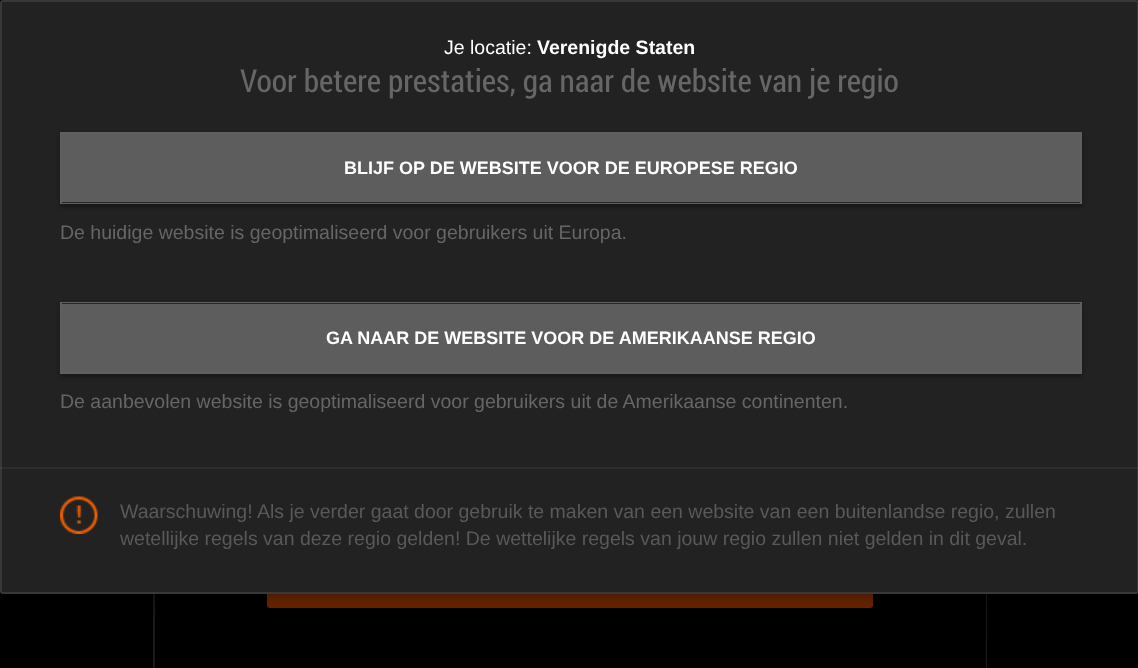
async function draw(canvas) {
  canvas.width = 1138;
  canvas.height = 668;
  const ctx = canvas.getContext('2d');
  ctx.miterLimit = 4;
  ctx.fontKerning = 'normal';
  function label(s, x, y, font, color) {
    ctx.font = font;
    ctx.fillStyle = color;
    ctx.fillText(s, x, y);
  }
  function rect(x, y, w, h, color) {
    ctx.fillStyle = color;
    ctx.fillRect(x, y, w, h);
  }
  function roundedRect(x, y, w, h, r, color) {
    ctx.fillStyle = color;
    ctx.beginPath();
    ctx.roundRect(x, y, w, h, r);
    ctx.fill();
  }
  async function image(src, x, y, w, h) {
    const img = new Image();
    img.src = src;
    await img.decode();
    ctx.drawImage(img, x, y, w, h);
  }
  let gradient;

  rect(0, 0, 1138, 668, '#000');
  ctx.strokeStyle = '#1a1a1a';
  ctx.lineWidth = 2;
  ctx.strokeRect(154, -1, 832, 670);
  rect(985, 594, 1, 74, '#000000e6');
  gradient = ctx.createLinearGradient(570, 503, 570, 608);
  gradient.addColorStop(0, '#7f4900');
  gradient.addColorStop(1, '#6d2400');
  ctx.fillStyle = gradient;
  ctx.beginPath();
  ctx.roundRect(267, 503, 606, 105, 3);
  ctx.fill();
  ctx.fillStyle = '#00000033';
  ctx.filter = 'blur(20px)';
  ctx.beginPath();
  ctx.roundRect(0, 0, 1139, 594, 3);
  ctx.fill();
  ctx.filter = 'none';
  ctx.fillStyle = '#00000066';
  ctx.filter = 'blur(7.5px)';
  ctx.beginPath();
  ctx.roundRect(0, 0, 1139, 594, 3);
  ctx.fill();
  ctx.filter = 'none';
  roundedRect(0, 0, 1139, 594, 3, '#222');
  ctx.beginPath();
  ctx.roundRect(1, 1, 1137, 592, 2);
  ctx.strokeStyle = '#ffffff1a';
  ctx.stroke();
  label('Je locatie:', 444, 54, '19.5px Liberation Sans', '#fff');
  label('Verenigde Staten', 537, 54, 'bold 19.5px Liberation Sans', '#fff');
  label('Voor betere prestaties, ga naar de website van je regio', 240, 92, '31.5px Roboto Condensed', '#666');
  ctx.fillStyle = '#00000052';
  ctx.filter = 'blur(2px)';
  ctx.beginPath();
  ctx.rect(60, 135, 1022, 72);
  ctx.fill();
  ctx.filter = 'none';
  ctx.fillStyle = '#e9e9e9';
  ctx.beginPath();
  ctx.rect(61, 133, 1020, 70);
  ctx.fill();
  ctx.strokeStyle = '#5f5f5f';
  ctx.stroke();
  rect(62, 134, 1018, 69, '#00000099');
  label('BLIJF OP DE WEBSITE VOOR DE EUROPESE REGIO', 344, 174, 'bold 18px Liberation Sans', '#fff');
  label('De huidige website is geoptimaliseerd voor gebruikers uit Europa.', 60, 239, '19.5px Liberation Sans', '#666');
  ctx.fillStyle = '#00000052';
  ctx.filter = 'blur(2px)';
  ctx.beginPath();
  ctx.rect(60, 305, 1022, 72);
  ctx.fill();
  ctx.filter = 'none';
  ctx.fillStyle = '#e9e9e9';
  ctx.beginPath();
  ctx.rect(61, 303, 1020, 70);
  ctx.fill();
  ctx.stroke();
  rect(62, 303, 1018, 69, '#00000099');
  label('GA NAAR DE WEBSITE VOOR DE AMERIKAANSE REGIO', 326, 344, 'bold 18px Liberation Sans', '#fff');
  label('De aanbevolen website is geoptimaliseerd voor gebruikers uit de Amerikaanse continenten.', 60, 408, '19.5px Liberation Sans', '#666');
  await image('assets/img1.png', 60, 496, 38, 38);
  rect(0, 467, 1138, 2, '#73737326');
  label('Waarschuwing! Als je verder gaat door gebruik te maken van een website van een buitenlandse regio, zullen', 120, 518, '19.5px Liberation Sans', '#595959');
  label('wetellijke regels van deze regio gelden! De wettelijke regels van jouw regio zullen niet gelden in dit geval.', 120, 545, '19.5px Liberation Sans', '#595959');
}

draw(document.querySelector('canvas'));
